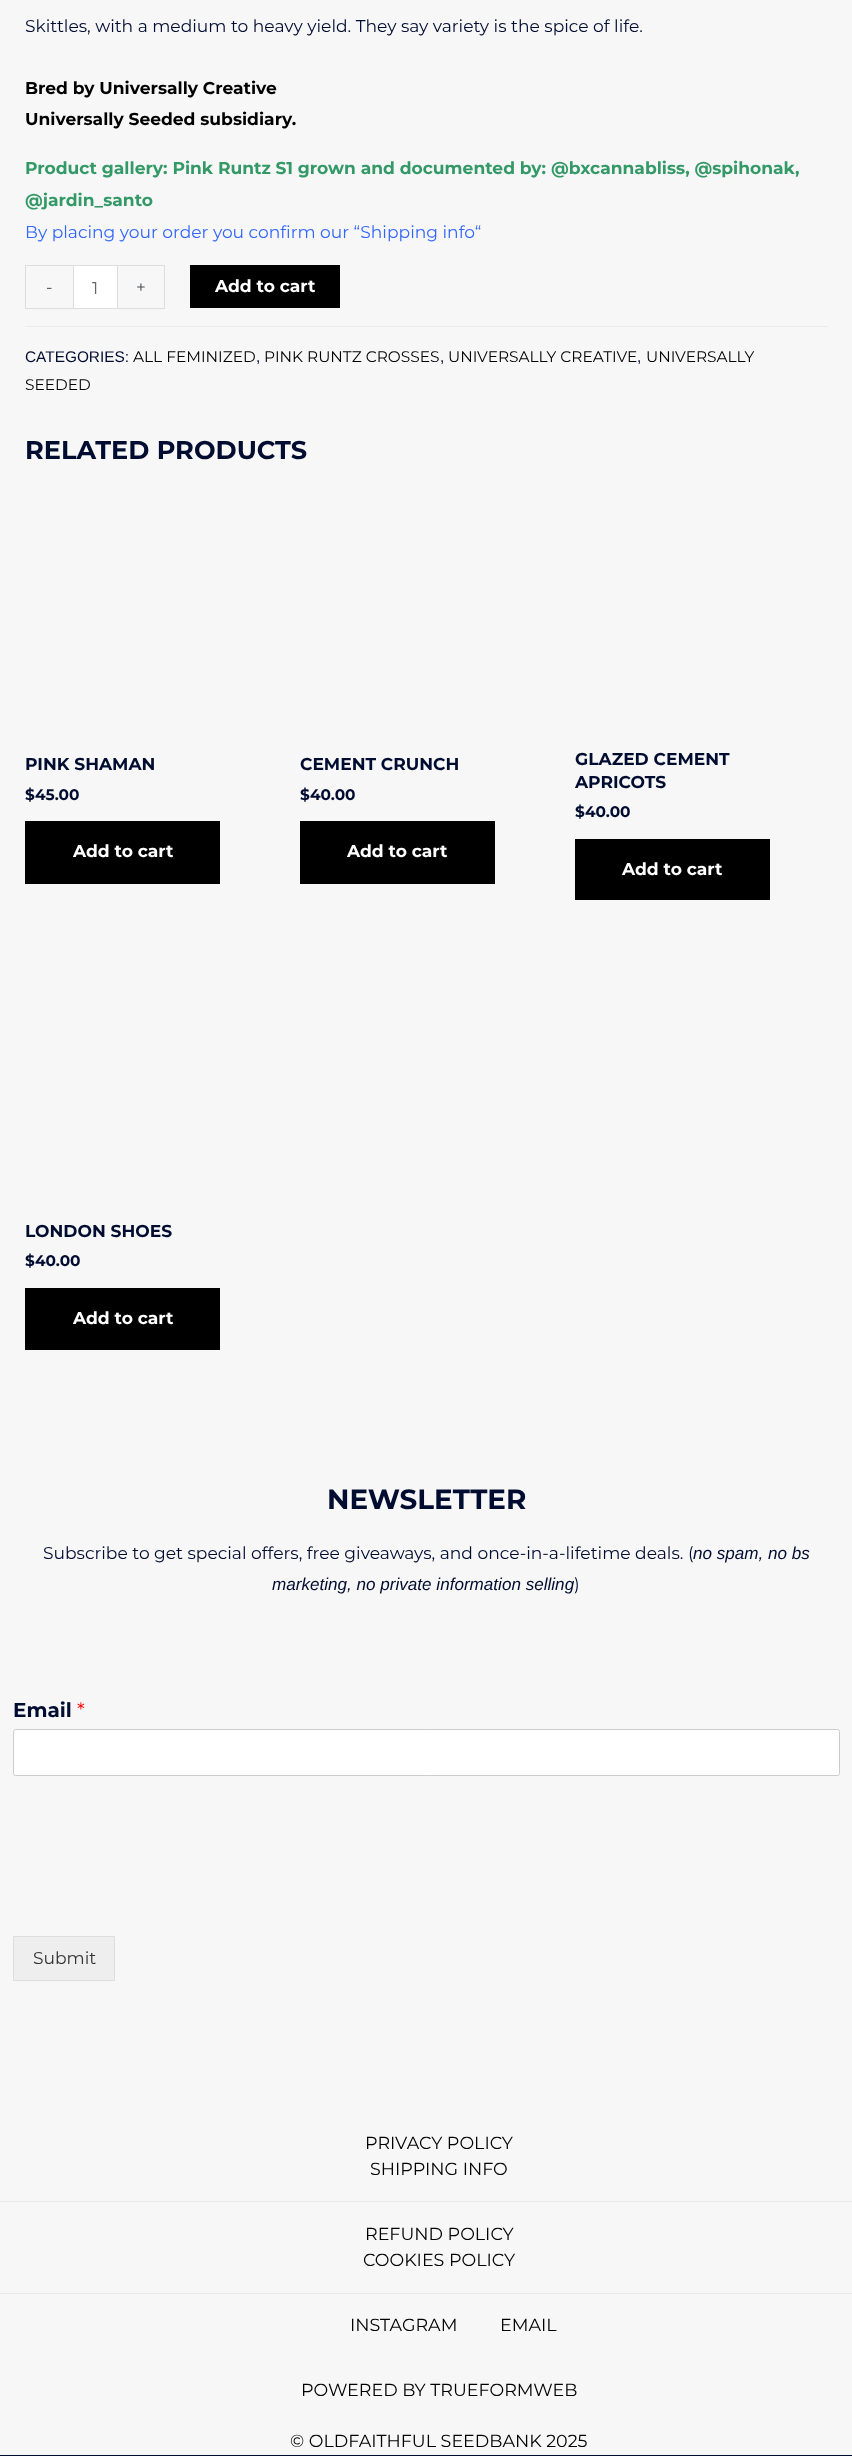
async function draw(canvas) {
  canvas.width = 852;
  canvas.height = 2456;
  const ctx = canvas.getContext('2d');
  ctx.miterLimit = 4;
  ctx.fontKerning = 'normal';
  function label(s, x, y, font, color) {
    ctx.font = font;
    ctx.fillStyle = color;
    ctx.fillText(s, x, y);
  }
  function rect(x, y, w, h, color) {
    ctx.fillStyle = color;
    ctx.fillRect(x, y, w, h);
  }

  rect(0, 0, 852, 2456, '#f7f7f7');
  label('Skittles, with a medium to heavy yield. They say variety is the spice of life.', 25, 32, '17.1px Montserrat', '#000c30');
  label('Bred by Universally Creative', 25, 94, 'bold 17.1px Montserrat', '#000');
  label('Universally Seeded subsidiary.', 25, 125, 'bold 17.1px Montserrat', '#000');
  label('Product gallery: Pink Runtz S1 grown and documented by: @bxcannabliss, @spihonak,', 25, 174, 'bold 17.1px Montserrat', '#396');
  label('@jardin_santo', 25, 206, 'bold 17.1px Montserrat', '#396');
  label('By placing your order you confirm our “Shipping info“', 25, 238, '17.1px Montserrat', '#36f');
  rect(25, 265, 48, 1, '#ddd');
  rect(25, 308, 48, 1, '#ddd');
  rect(25, 265, 1, 44, '#ddd');
  label('-', 46, 293, '17.1px Montserrat', '#4b4f58');
  ctx.fillStyle = '#fff';
  ctx.beginPath();
  ctx.rect(73.5, 265.5, 44, 43);
  ctx.fill();
  ctx.strokeStyle = '#ddd';
  ctx.stroke();
  label('1', 92, 294, '17.1px Montserrat', '#666');
  rect(118, 265, 47, 1, '#ddd');
  rect(164, 265, 1, 44, '#ddd');
  rect(118, 308, 47, 1, '#ddd');
  label('+', 136, 293, '17.1px Montserrat', '#4b4f58');
  rect(190, 265, 150, 43, '#000');
  label('Add to cart', 215, 292, 'bold 17.1px Montserrat', '#fff');
  rect(25, 326, 803, 1, '#ebebeb');
  label('CATEGORIES:', 25, 362, '15.4px Liberation Sans', '#000c30');
  label('ALL FEMINIZED', 133, 362, '15.4px Montserrat', '#000');
  label(',', 256, 362, '15.4px Liberation Sans', '#000c30');
  label('PINK RUNTZ CROSSES', 264, 362, '15.4px Montserrat', '#000');
  label(',', 440, 362, '15.4px Liberation Sans', '#000c30');
  label('UNIVERSALLY CREATIVE', 448, 362, '15.4px Montserrat', '#000');
  label(',', 637, 362, '15.4px Liberation Sans', '#000c30');
  label('UNIVERSALLY', 646, 362, '15.4px Montserrat', '#000');
  label('SEEDED', 25, 390, '15.4px Montserrat', '#000');
  label('RELATED PRODUCTS', 25, 459, 'bold 25.6px Montserrat', '#000c30');
  label('PINK SHAMAN', 25, 770, 'bold 17.1px Montserrat', '#000c30');
  label('$45.00', 25, 800, 'bold 15.4px Montserrat', '#000c30');
  rect(25, 821, 195, 63, '#000');
  label('Add to cart', 73, 857, 'bold 17.1px Montserrat', '#fff');
  label('CEMENT CRUNCH', 300, 770, 'bold 17.1px Montserrat', '#000c30');
  label('$40.00', 300, 800, 'bold 15.4px Montserrat', '#000c30');
  rect(300, 821, 195, 63, '#000');
  label('Add to cart', 347, 857, 'bold 17.1px Montserrat', '#fff');
  label('GLAZED CEMENT', 575, 765, 'bold 17.1px Montserrat', '#000c30');
  label('APRICOTS', 575, 788, 'bold 17.1px Montserrat', '#000c30');
  label('$40.00', 575, 817, 'bold 15.4px Montserrat', '#000c30');
  rect(575, 839, 195, 61, '#000');
  label('Add to cart', 622, 875, 'bold 17.1px Montserrat', '#fff');
  label('LONDON SHOES', 25, 1237, 'bold 17.1px Montserrat', '#000c30');
  label('$40.00', 25, 1266, 'bold 15.4px Montserrat', '#000c30');
  rect(25, 1288, 195, 62, '#000');
  label('Add to cart', 73, 1324, 'bold 17.1px Montserrat', '#fff');
  label('NEWSLETTER', 327, 1509, 'bold 27.75px Montserrat', '#000c30');
  label('Subscribe to get special offers, free giveaways, and once-in-a-lifetime deals. (', 43, 1559, '17.1px Montserrat', '#000c30');
  label('no spam, no bs', 693, 1559, 'italic 17.1px Liberation Sans', '#000c30');
  label('marketing, no private information selling', 272, 1590, 'italic 17.1px Liberation Sans', '#000c30');
  label(')', 574, 1590, '17.1px Montserrat', '#000c30');
  label('Email', 13, 1717, 'bold 20px Montserrat', '#000c30');
  label('*', 77, 1717, '20px Montserrat', '#f00');
  ctx.fillStyle = '#fff';
  ctx.beginPath();
  ctx.roundRect(13.5, 1729.5, 826, 46, 2);
  ctx.fill();
  ctx.strokeStyle = '#ccc';
  ctx.stroke();
  ctx.fillStyle = '#eee';
  ctx.beginPath();
  ctx.rect(13.5, 1936.5, 101, 44);
  ctx.fill();
  ctx.strokeStyle = '#ddd';
  ctx.stroke();
  label('Submit', 33, 1964, '17.1px Montserrat', '#333');
  rect(0, 2201, 852, 1, '#e9e9e9');
  label('PRIVACY POLICY', 365, 2149, '17.5px Montserrat', '#000');
  label('SHIPPING INFO', 370, 2175, '17.5px Montserrat', '#000');
  rect(0, 2293, 852, 1, '#e9e9e9');
  label('REFUND POLICY', 365, 2240, '17.5px Montserrat', '#000');
  label('COOKIES POLICY', 363, 2266, '17.5px Montserrat', '#000');
  rect(0, 2455, 852, 1, '#000c30');
  label('INSTAGRAM', 350, 2331, '17.5px Montserrat', '#000');
  label('EMAIL', 500, 2331, '17.5px Montserrat', '#000');
  label('POWERED BY TRUEFORMWEB', 301, 2396, '17.5px Montserrat', '#000');
  label('© OLDFAITHFUL SEEDBANK 2025', 290, 2447, '17.5px Montserrat', '#000');
}

draw(document.querySelector('canvas'));
